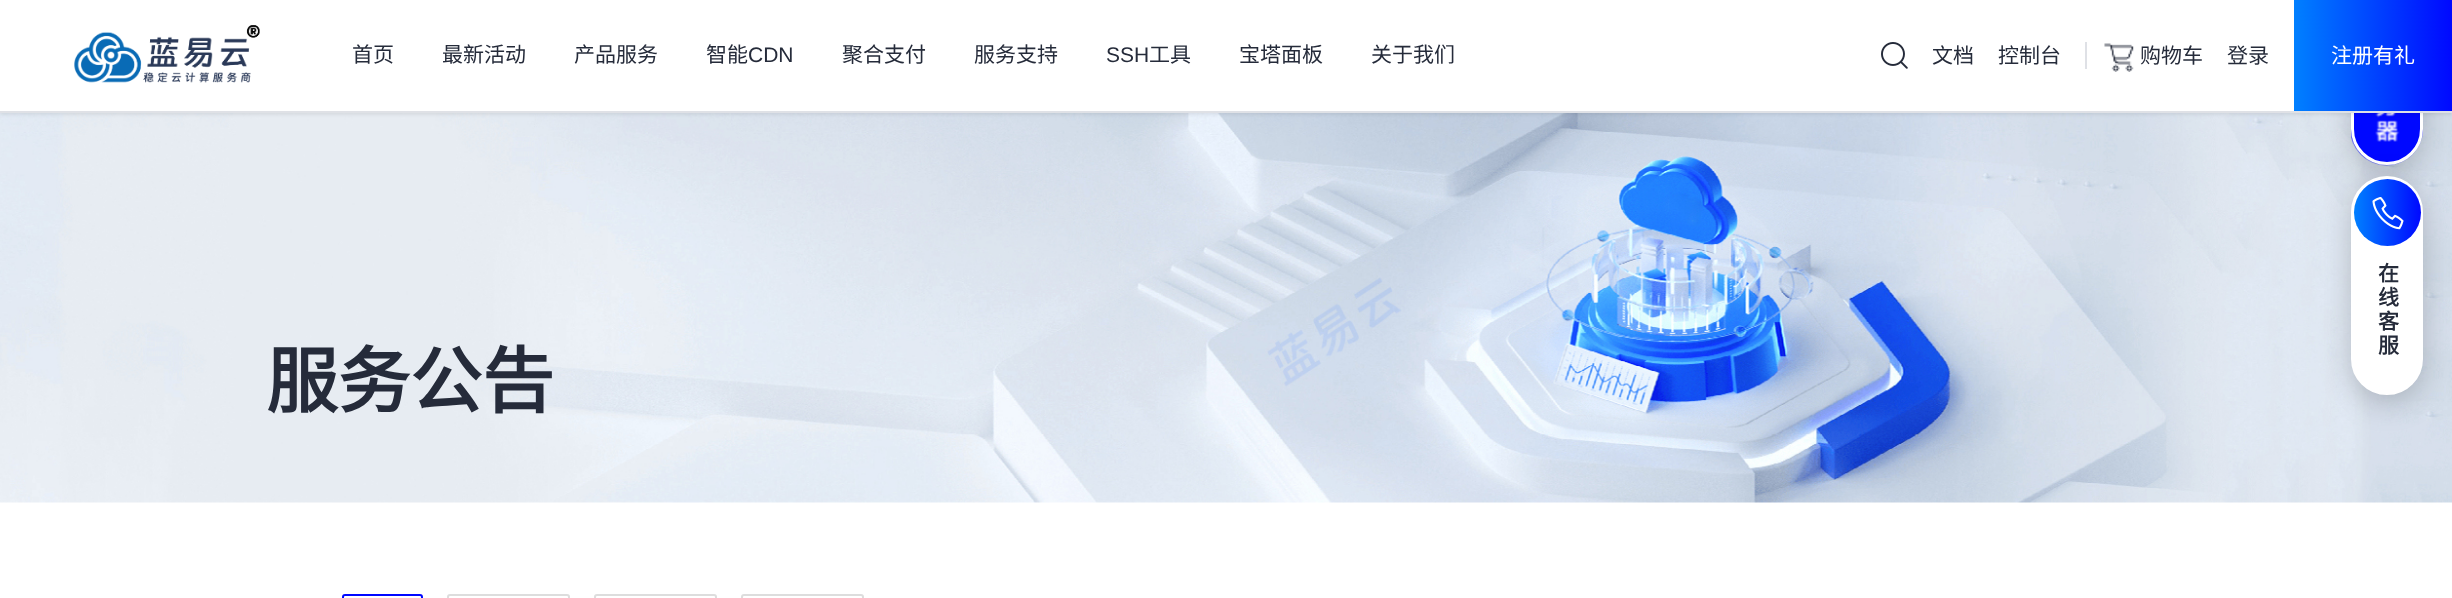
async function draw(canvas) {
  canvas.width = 2452;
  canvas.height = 598;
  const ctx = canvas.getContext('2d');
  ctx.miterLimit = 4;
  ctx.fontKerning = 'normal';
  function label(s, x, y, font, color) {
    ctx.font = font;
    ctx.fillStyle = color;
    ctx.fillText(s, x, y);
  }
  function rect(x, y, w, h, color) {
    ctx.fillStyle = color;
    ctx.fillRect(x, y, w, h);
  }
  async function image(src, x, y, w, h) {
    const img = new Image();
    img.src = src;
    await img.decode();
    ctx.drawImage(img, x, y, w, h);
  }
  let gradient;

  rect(0, 0, 2452, 598, '#fff');
  await image('assets/img6.png', 0, 113, 2452, 390);
  ctx.fillStyle = '#00000033';
  ctx.filter = 'blur(15px)';
  ctx.beginPath();
  ctx.roundRect(2351, -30, 72, 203, 36);
  ctx.fill();
  ctx.filter = 'none';
  await image('assets/img4.png', 2351, 113, 72, 53);
  ctx.beginPath();
  ctx.roundRect(2352.5, -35.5, 69, 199, 34.5);
  ctx.strokeStyle = '#fff';
  ctx.lineWidth = 3;
  ctx.stroke();
  ctx.fillStyle = '#0000001a';
  ctx.filter = 'blur(2px)';
  ctx.beginPath();
  ctx.rect(0, 2, 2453, 112);
  ctx.fill();
  ctx.filter = 'none';
  rect(0, 0, 2294, 111, '#fff');
  rect(0, 111, 2452, 2, '#dfe1e6');
  await image('assets/img1.png', 74, 25, 186, 58);
  label('首页', 352, 62, '21px Noto Sans CJK SC', '#252b3a');
  label('最新活动', 442, 62, '21px Noto Sans CJK SC', '#252b3a');
  label('产品服务', 574, 62, '21px Noto Sans CJK SC', '#252b3a');
  label('智能', 706, 62, '21px Noto Sans CJK SC', '#252b3a');
  label('CDN', 748, 62, '21px Liberation Sans', '#252b3a');
  label('聚合支付', 842, 62, '21px Noto Sans CJK SC', '#252b3a');
  label('服务支持', 974, 62, '21px Noto Sans CJK SC', '#252b3a');
  label('SSH', 1106, 62, '21px Liberation Sans', '#252b3a');
  label('工具', 1149, 62, '21px Noto Sans CJK SC', '#252b3a');
  label('宝塔面板', 1239, 62, '21px Noto Sans CJK SC', '#252b3a');
  label('关于我们', 1371, 62, '21px Noto Sans CJK SC', '#252b3a');
  await image('assets/img2.png', 1881, 42, 27, 27);
  label('文档', 1932, 63, '21px Noto Sans CJK SC', '#252b3a');
  label('控制台', 1998, 63, '21px Noto Sans CJK SC', '#252b3a');
  rect(2085, 42, 2, 27, '#dfe1e6');
  await image('assets/img3.png', 2104, 43, 30, 29);
  label('购物车', 2140, 63, '21px Noto Sans CJK SC', '#252b3a');
  label('登录', 2227, 63, '21px Noto Sans CJK SC', '#252b3a');
  gradient = ctx.createLinearGradient(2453, 55, 2294, 56);
  gradient.addColorStop(0, '#0008ff');
  gradient.addColorStop(1, '#0080ff');
  ctx.fillStyle = gradient;
  ctx.fillRect(2294, 0, 158, 111);
  label('注册有礼', 2331, 63, '21px Noto Sans CJK SC', '#fff');
  ctx.fillStyle = '#00000033';
  ctx.filter = 'blur(15px)';
  ctx.beginPath();
  ctx.roundRect(2351, 183, 72, 219, 36);
  ctx.fill();
  ctx.filter = 'none';
  ctx.fillStyle = '#fff';
  ctx.beginPath();
  ctx.roundRect(2352.5, 177.5, 69, 216, 34.5);
  ctx.fill();
  ctx.stroke();
  gradient = ctx.createLinearGradient(2421, 212, 2354, 212);
  gradient.addColorStop(0, '#0008ff');
  gradient.addColorStop(1, '#0080ff');
  ctx.fillStyle = gradient;
  ctx.beginPath();
  ctx.arc(2387.5, 212.5, 33.5, 0, 2 * Math.PI);
  ctx.fill();
  await image('assets/img5.png', 2372, 197, 32, 33);
  ctx.letterSpacing = '2px';
  label('在', 2378, 281, 'bold 21px Noto Sans CJK SC', '#252b3a');
  label('线', 2378, 305, 'bold 21px Noto Sans CJK SC', '#252b3a');
  label('客', 2378, 329, 'bold 21px Noto Sans CJK SC', '#252b3a');
  label('服', 2378, 353, 'bold 21px Noto Sans CJK SC', '#252b3a');
  ctx.letterSpacing = '0px';
  label('服务公告', 266, 407, 'bold 72px Noto Sans CJK SC', '#252b3a');
  ctx.beginPath();
  ctx.roundRect(343, 595, 79, 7, 2);
  ctx.strokeStyle = '#0008ff';
  ctx.lineWidth = 2;
  ctx.stroke();
  ctx.beginPath();
  ctx.roundRect(448, 595, 121, 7, 2);
  ctx.strokeStyle = '#ddd';
  ctx.stroke();
  ctx.beginPath();
  ctx.roundRect(595, 595, 121, 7, 2);
  ctx.stroke();
  ctx.beginPath();
  ctx.roundRect(742, 595, 121, 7, 2);
  ctx.stroke();
}

draw(document.querySelector('canvas'));
